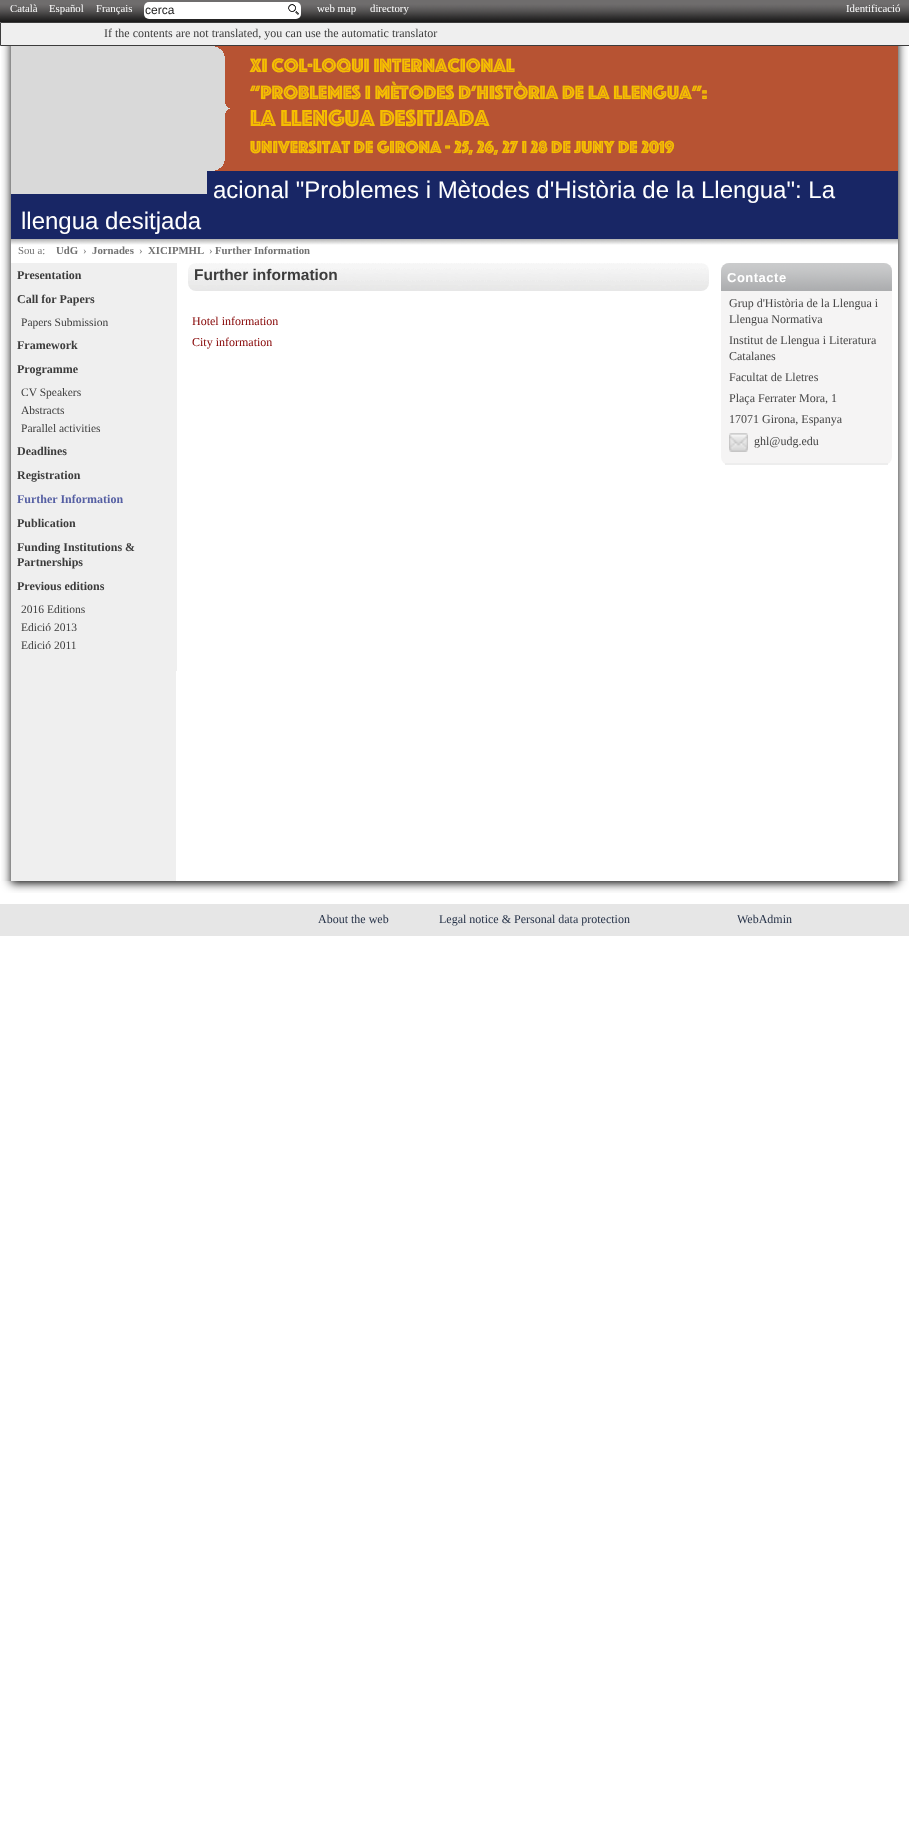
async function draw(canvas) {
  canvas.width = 909;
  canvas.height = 1826;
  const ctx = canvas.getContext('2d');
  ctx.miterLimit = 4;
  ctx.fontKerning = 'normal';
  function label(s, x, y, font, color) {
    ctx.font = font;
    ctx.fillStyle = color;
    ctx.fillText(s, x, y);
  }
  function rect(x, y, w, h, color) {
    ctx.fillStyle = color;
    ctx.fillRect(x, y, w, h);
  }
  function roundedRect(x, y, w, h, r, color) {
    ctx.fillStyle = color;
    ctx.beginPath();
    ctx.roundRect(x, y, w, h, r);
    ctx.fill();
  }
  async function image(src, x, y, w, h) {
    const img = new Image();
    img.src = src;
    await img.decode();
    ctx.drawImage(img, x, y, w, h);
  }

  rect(0, 0, 909, 1826, '#fff');
  await image('assets/img1.png', 0, 0, 909, 22);
  label('Català', 10, 12, '10.75px Liberation Serif', '#fff');
  label('Español', 49, 12, '10.75px Liberation Serif', '#fff');
  label('Français', 96, 12, '10.75px Liberation Serif', '#fff');
  roundedRect(144, 2, 157, 17, 5, '#fff');
  await image('assets/img2.png', 288, 4, 11, 11);
  label('cerca', 145, 14, '12px Liberation Sans', '#222');
  label('web map', 317, 12, '10.75px Liberation Serif', '#fff');
  label('directory', 370, 12, '10.75px Liberation Serif', '#fff');
  label('Identificació', 846, 12, '10.75px Liberation Serif', '#fff');
  ctx.fillStyle = '#efefef';
  ctx.beginPath();
  ctx.rect(0.5, 22.5, 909, 23);
  ctx.fill();
  ctx.strokeStyle = '#3c3c3c';
  ctx.stroke();
  label('If the contents are not translated, you can use the automatic translator', 104, 37, '12px Liberation Serif', '#3c3c3c');
  await image('assets/img3.png', 20, 881, 869, 12);
  await image('assets/img4.png', 0, 881, 20, 12);
  await image('assets/img5.png', 889, 881, 20, 12);
  await image('assets/img6.png', 1, 46, 10, 835);
  await image('assets/img7.png', 898, 46, 10, 835);
  rect(11, 171, 887, 68, '#182665');
  rect(11, 46, 196, 148, '#d9d9d9');
  rect(207, 46, 23, 125, '#d9d9d9');
  await image('assets/img8.png', 215, 46, 683, 125);
  label('acional "Problemes i Mètodes d\'Història de la Llengua": La', 213, 198, '24px Liberation Sans', '#fff');
  label('llengua desitjada', 21, 229, '24px Liberation Sans', '#fff');
  await image('assets/img9.png', 11, 239, 887, 6);
  label('Sou a:', 18, 254, '10.75px Liberation Serif', '#717171');
  label('UdG', 56, 254, 'bold 10.75px Liberation Serif', '#717171');
  label('›', 83, 254, '10.75px Liberation Serif', '#717171');
  label('Jornades', 92, 254, 'bold 10.75px Liberation Serif', '#717171');
  label('›', 139, 254, '10.75px Liberation Serif', '#717171');
  label('XICIPMHL', 148, 254, 'bold 10.75px Liberation Serif', '#717171');
  label('›', 209, 254, '10.75px Liberation Serif', '#717171');
  label('Further Information', 215, 254, 'bold 10.75px Liberation Serif', '#717171');
  rect(11, 263, 165, 618, '#efefef');
  rect(176, 263, 1, 408, '#efefef');
  label('Presentation', 17, 279, 'bold 12px Liberation Serif', '#3c3c3c');
  label('Call for Papers', 17, 303, 'bold 12px Liberation Serif', '#3c3c3c');
  label('Papers Submission', 21, 326, '11.5px Liberation Serif', '#3c3c3c');
  label('Framework', 17, 349, 'bold 12px Liberation Serif', '#3c3c3c');
  label('Programme', 17, 373, 'bold 12px Liberation Serif', '#3c3c3c');
  label('CV Speakers', 21, 396, '11.5px Liberation Serif', '#3c3c3c');
  label('Abstracts', 21, 414, '11.5px Liberation Serif', '#3c3c3c');
  label('Parallel activities', 21, 432, '11.5px Liberation Serif', '#3c3c3c');
  label('Deadlines', 17, 455, 'bold 12px Liberation Serif', '#3c3c3c');
  label('Registration', 17, 479, 'bold 12px Liberation Serif', '#3c3c3c');
  label('Further Information', 17, 503, 'bold 12px Liberation Serif', '#555fa3');
  label('Publication', 17, 527, 'bold 12px Liberation Serif', '#3c3c3c');
  label('Funding Institutions &', 17, 551, 'bold 12px Liberation Serif', '#3c3c3c');
  label('Partnerships', 17, 566, 'bold 12px Liberation Serif', '#3c3c3c');
  label('Previous editions', 17, 590, 'bold 12px Liberation Serif', '#3c3c3c');
  label('2016 Editions', 21, 613, '11.5px Liberation Serif', '#3c3c3c');
  label('Edició 2013', 21, 631, '11.5px Liberation Serif', '#3c3c3c');
  label('Edició 2011', 21, 649, '11.5px Liberation Serif', '#3c3c3c');
  await image('assets/img10.png', 188, 263, 521, 28);
  label('Further information', 194, 280, 'bold 15.5px Liberation Sans', '#3c3c3c');
  label('Hotel information', 192, 325, '12px Liberation Serif', '#840000');
  label('City information', 192, 346, '12px Liberation Serif', '#840000');
  roundedRect(721, 263, 171, 202, 8, '#f5f4f4');
  rect(725, 463, 163, 2, '#ededed');
  await image('assets/img11.png', 721, 263, 171, 28);
  ctx.letterSpacing = '0.5px';
  label('Contacte', 727, 282, 'bold 13px Liberation Sans', '#fff');
  ctx.letterSpacing = '0px';
  label('Grup d\'Història de la Llengua i', 729, 307, '12px Liberation Serif', '#444');
  label('Llengua Normativa', 729, 323, '12px Liberation Serif', '#444');
  label('Institut de Llengua i Literatura', 729, 344, '12px Liberation Serif', '#444');
  label('Catalanes', 729, 360, '12px Liberation Serif', '#444');
  label('Facultat de Lletres', 729, 381, '12px Liberation Serif', '#444');
  label('Plaça Ferrater Mora, 1', 729, 402, '12px Liberation Serif', '#444');
  label('17071 Girona, Espanya', 729, 423, '12px Liberation Serif', '#444');
  await image('assets/img12.png', 729, 433, 19, 19);
  label('ghl@udg.edu', 754, 445, '12px Liberation Serif', '#444');
  rect(0, 904, 909, 32, '#e6e6e6');
  label('About the web', 318, 923, '12px Liberation Serif', '#263248');
  label('Legal notice & Personal data protection', 439, 923, '12px Liberation Serif', '#263248');
  label('WebAdmin', 737, 923, '12px Liberation Serif', '#263248');
}

draw(document.querySelector('canvas'));
